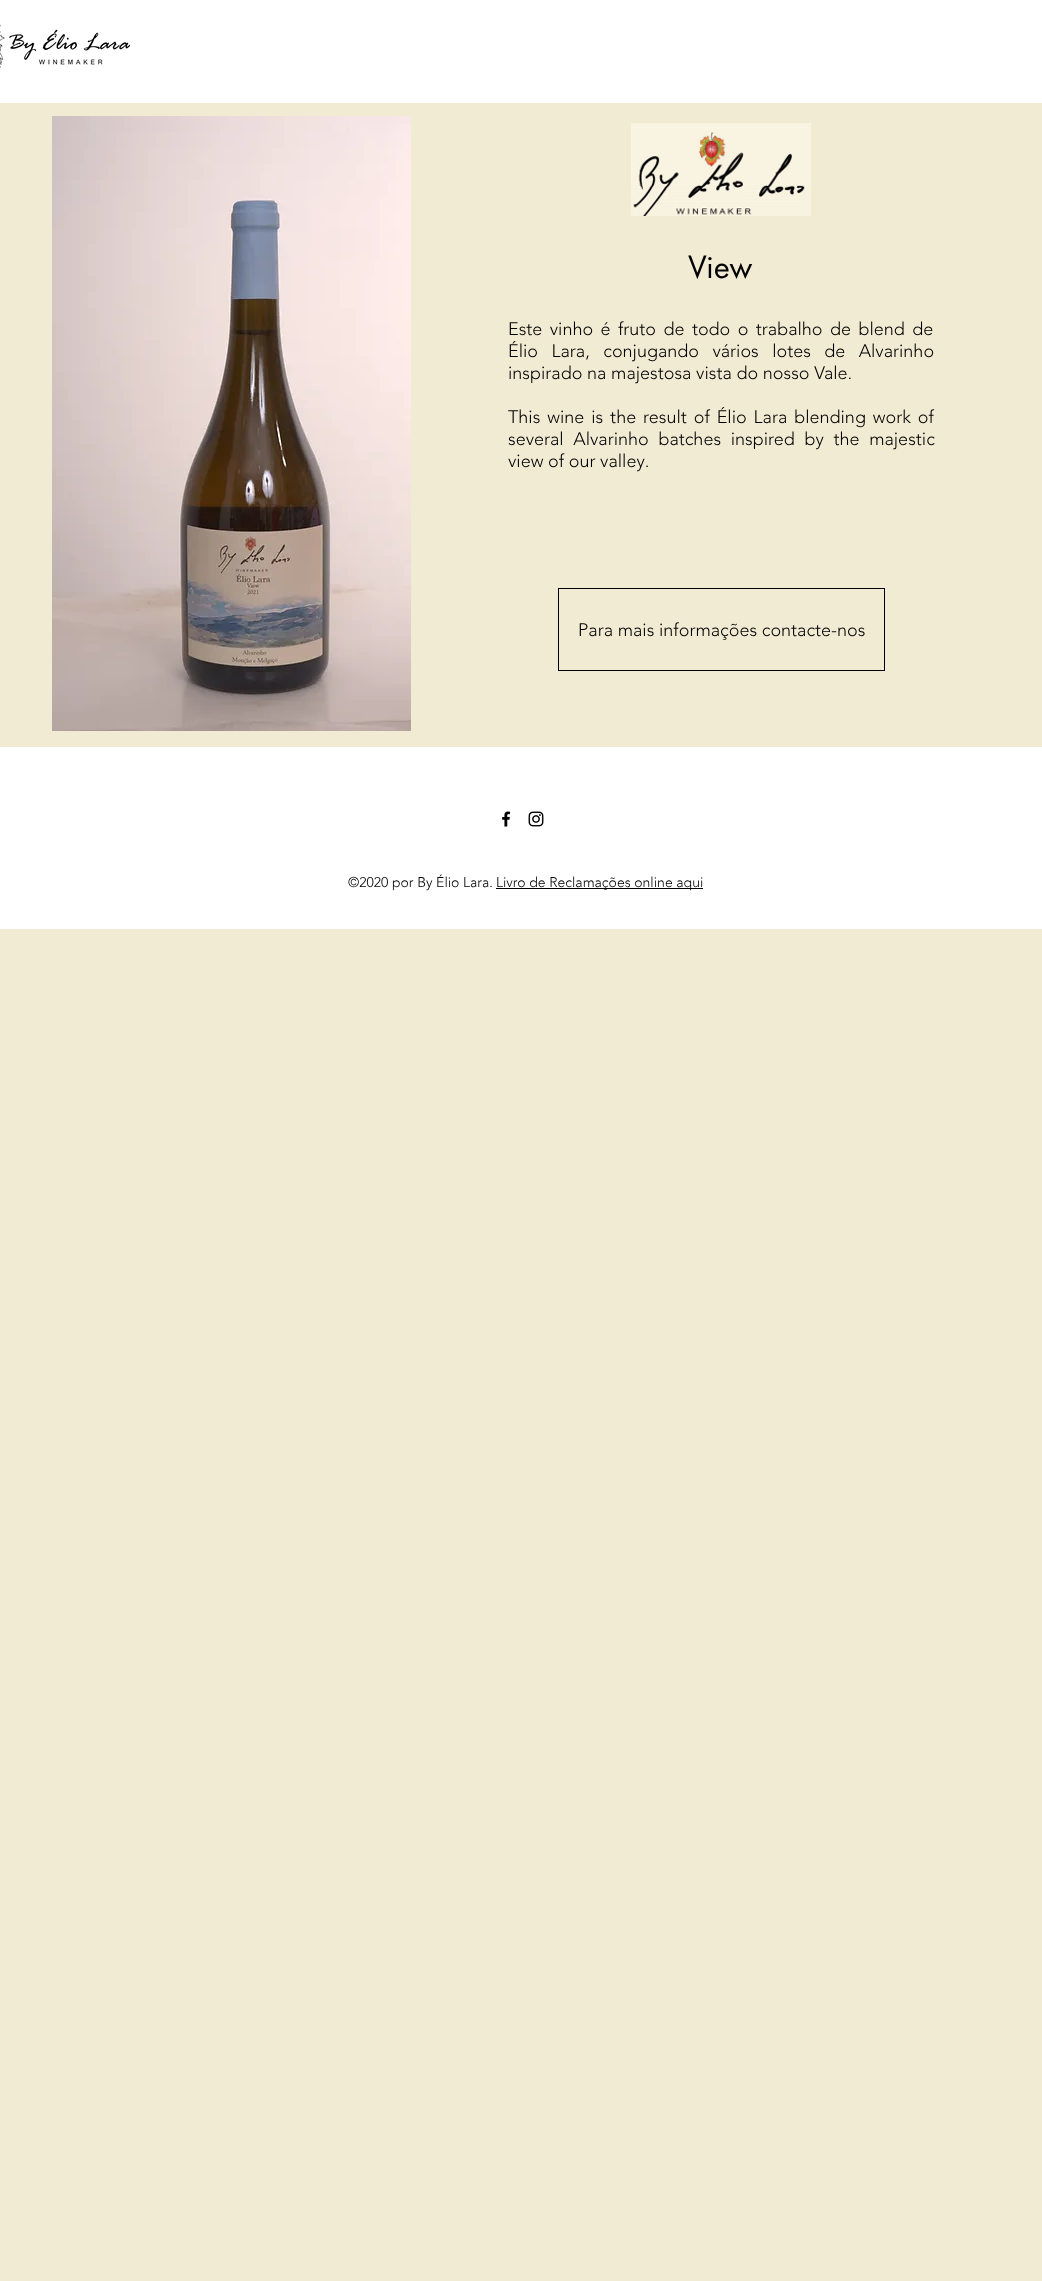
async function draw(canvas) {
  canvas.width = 1042;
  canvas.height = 2281;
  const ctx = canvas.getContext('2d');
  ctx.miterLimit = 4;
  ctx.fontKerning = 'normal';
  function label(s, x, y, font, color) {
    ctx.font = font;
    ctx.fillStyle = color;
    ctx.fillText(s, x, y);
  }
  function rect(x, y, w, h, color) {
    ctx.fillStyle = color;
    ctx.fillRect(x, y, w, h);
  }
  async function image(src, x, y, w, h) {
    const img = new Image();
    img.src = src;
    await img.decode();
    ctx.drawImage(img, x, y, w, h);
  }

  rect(0, 0, 1042, 2281, '#f2ebd3');
  rect(0, 0, 1042, 103, '#fff');
  await image('assets/img1.png', 0, 24, 130, 44);
  await image('assets/img2.png', 52, 116, 359, 615);
  await image('assets/img3.png', 631, 123, 180, 93);
  label('View', 688, 278, '30px futura', '#000');
  ctx.wordSpacing = '2.75px';
  label('Este vinho é fruto de todo o trabalho de blend de', 508, 335, '300 18px "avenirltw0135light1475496"', '#000');
  ctx.wordSpacing = '8.75px';
  label('Élio Lara, conjugando vários lotes de Alvarinho', 508, 357, '300 18px "avenirltw0135light1475496"', '#000');
  ctx.wordSpacing = '0px';
  label('inspirado na majestosa vista do nosso Vale.', 508, 379, '300 18px "avenirltw0135light1475496"', '#000');
  ctx.wordSpacing = '2.25px';
  label('This wine is the result of Élio Lara blending work of', 508, 423, '300 18px "avenirltw0135light1475496"', '#000');
  ctx.wordSpacing = '5px';
  label('several Alvarinho batches inspired by the majestic', 508, 445, '300 18px "avenirltw0135light1475496"', '#000');
  ctx.wordSpacing = '0px';
  label('view of our valley.', 508, 467, '300 18px "avenirltw0135light1475496"', '#000');
  ctx.strokeStyle = '#000';
  ctx.strokeRect(558.5, 588.5, 326, 82);
  label('Para mais informações contacte-nos', 578, 636, '300 18px "avenirltw0135light1475496"', '#000');
  rect(0, 747, 1042, 182, '#fff');
  await image('assets/img4.png', 502, 811, 9, 16);
  await image('assets/img5.png', 528, 811, 16, 16);
  label('©2020 por By Élio Lara.', 348, 887, '300 14px "avenirltw0135light1475496"', '#000');
  rect(496, 888, 207, 1, '#000');
  label('Livro de Reclamações online aqui', 496, 887, '300 14px "avenirltw0135light1475496"', '#000');
}

draw(document.querySelector('canvas'));
